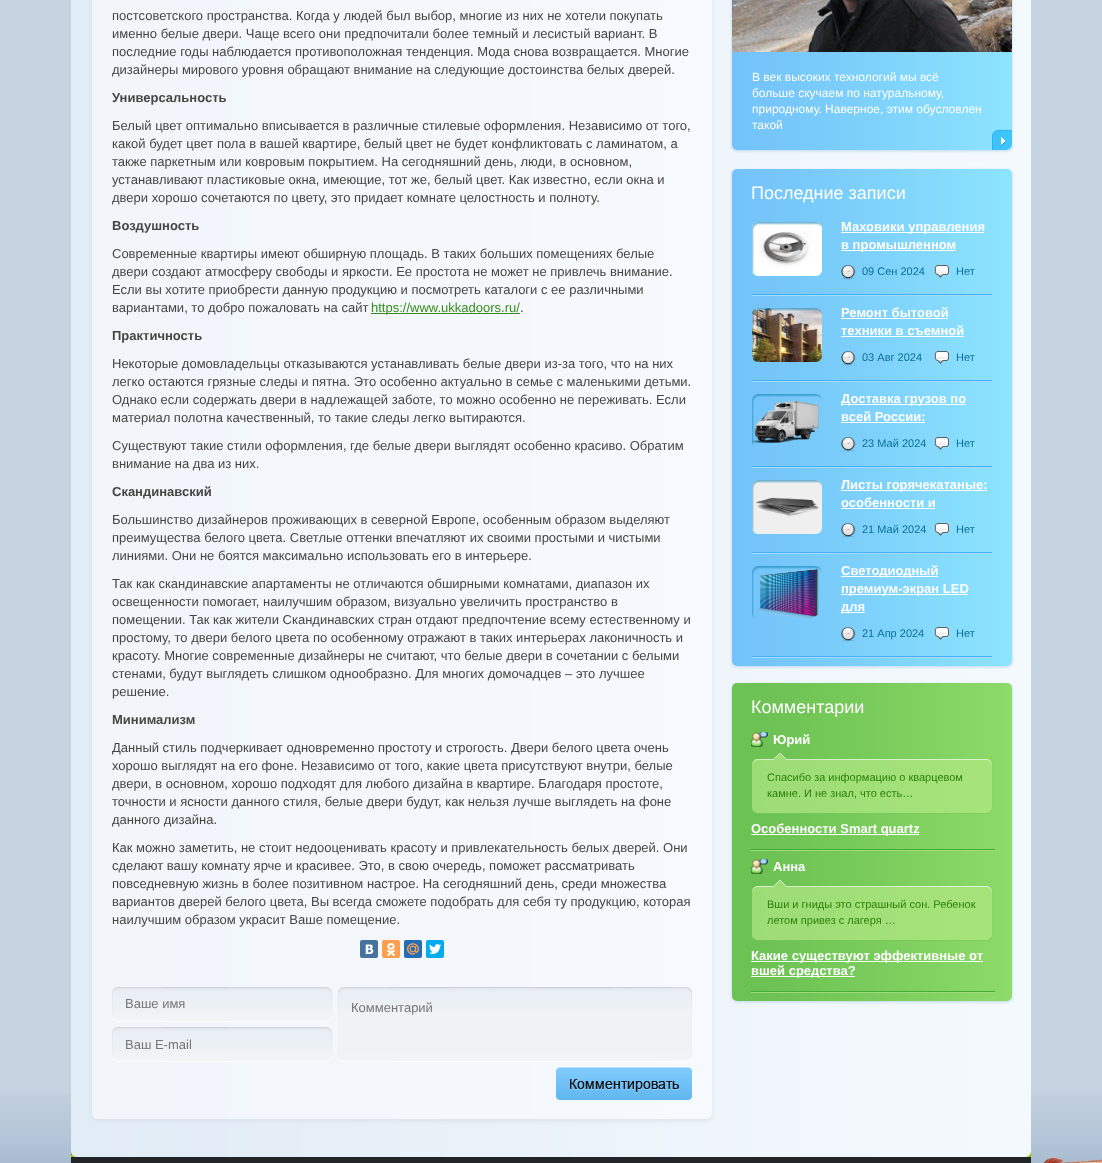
async function draw(canvas) {
  canvas.width = 1102;
  canvas.height = 1163;
  const ctx = canvas.getContext('2d');
  ctx.miterLimit = 4;
  ctx.fontKerning = 'normal';
  function label(s, x, y, font, color) {
    ctx.font = font;
    ctx.fillStyle = color;
    ctx.fillText(s, x, y);
  }
  function rect(x, y, w, h, color) {
    ctx.fillStyle = color;
    ctx.fillRect(x, y, w, h);
  }
  function roundedRect(x, y, w, h, r, color) {
    ctx.fillStyle = color;
    ctx.beginPath();
    ctx.roundRect(x, y, w, h, r);
    ctx.fill();
  }
  async function image(src, x, y, w, h) {
    const img = new Image();
    img.src = src;
    await img.decode();
    ctx.drawImage(img, x, y, w, h);
  }
  let path;

  rect(0, 0, 1102, 1163, '#c6d3e1');
  await image('assets/img1.png', 0, 1093, 1102, 70);
  await image('assets/img2.png', 71, 0, 960, 1149);
  ctx.save();
  path = new Path2D('M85 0H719V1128H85ZM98-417H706C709.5-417 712-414.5 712-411V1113C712 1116.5 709.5 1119 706 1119H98C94.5 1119 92 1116.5 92 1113V-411C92-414.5 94.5-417 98-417Z');
  ctx.clip(path, 'evenodd');
  ctx.fillStyle = '#d9e2ec';
  ctx.filter = 'blur(2px)';
  ctx.beginPath();
  ctx.roundRect(92, -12, 620, 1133, 6);
  ctx.fill();
  ctx.filter = 'none';
  ctx.restore();
  await image('assets/img3.png', 92, 0, 620, 1119);
  label('постсоветского пространства. Когда у людей был выбор, многие из них не хотели покупать', 112, 20, '13px Liberation Sans', '#474540');
  label('именно белые двери. Чаще всего они предпочитали более темный и лесистый вариант. В', 112, 38, '13px Liberation Sans', '#474540');
  label('последние годы наблюдается противоположная тенденция. Мода снова возвращается. Многие', 112, 56, '13px Liberation Sans', '#474540');
  label('дизайнеры мирового уровня обращают внимание на следующие достоинства белых дверей.', 112, 74, '13px Liberation Sans', '#474540');
  label('Универсальность', 112, 102, 'bold 13px Liberation Sans', '#474540');
  label('Белый цвет оптимально вписывается в различные стилевые оформления. Независимо от того,', 112, 130, '13px Liberation Sans', '#474540');
  label('какой будет цвет пола в вашей квартире, белый цвет не будет конфликтовать с ламинатом, а', 112, 148, '13px Liberation Sans', '#474540');
  label('также паркетным или ковровым покрытием. На сегодняшний день, люди, в основном,', 112, 166, '13px Liberation Sans', '#474540');
  label('устанавливают пластиковые окна, имеющие, тот же, белый цвет. Как известно, если окна и', 112, 184, '13px Liberation Sans', '#474540');
  label('двери хорошо сочетаются по цвету, это придает комнате целостность и полноту.', 112, 202, '13px Liberation Sans', '#474540');
  label('Воздушность', 112, 230, 'bold 13px Liberation Sans', '#474540');
  label('Современные квартиры имеют обширную площадь. В таких больших помещениях белые', 112, 258, '13px Liberation Sans', '#474540');
  label('двери создают атмосферу свободы и яркости. Ее простота не может не привлечь внимание.', 112, 276, '13px Liberation Sans', '#474540');
  label('Если вы хотите приобрести данную продукцию и посмотреть каталоги с ее различными', 112, 294, '13px Liberation Sans', '#474540');
  label('вариантами, то добро пожаловать на сайт', 112, 312, '13px Liberation Sans', '#474540');
  rect(371, 313, 149, 1, '#368d1c');
  label('https://www.ukkadoors.ru/', 371, 312, '13px Liberation Sans', '#368d1c');
  label('.', 520, 312, '13px Liberation Sans', '#474540');
  label('Практичность', 112, 340, 'bold 13px Liberation Sans', '#474540');
  label('Некоторые домовладельцы отказываются устанавливать белые двери из-за того, что на них', 112, 368, '13px Liberation Sans', '#474540');
  label('легко остаются грязные следы и пятна. Это особенно актуально в семье с маленькими детьми.', 112, 386, '13px Liberation Sans', '#474540');
  label('Однако если содержать двери в надлежащей заботе, то можно особенно не переживать. Если', 112, 404, '13px Liberation Sans', '#474540');
  label('материал полотна качественный, то такие следы легко вытираются.', 112, 422, '13px Liberation Sans', '#474540');
  label('Существуют такие стили оформления, где белые двери выглядят особенно красиво. Обратим', 112, 450, '13px Liberation Sans', '#474540');
  label('внимание на два из них.', 112, 468, '13px Liberation Sans', '#474540');
  label('Скандинавский', 112, 496, 'bold 13px Liberation Sans', '#474540');
  label('Большинство дизайнеров проживающих в северной Европе, особенным образом выделяют', 112, 524, '13px Liberation Sans', '#474540');
  label('преимущества белого цвета. Светлые оттенки впечатляют их своими простыми и чистыми', 112, 542, '13px Liberation Sans', '#474540');
  label('линиями. Они не боятся максимально использовать его в интерьере.', 112, 560, '13px Liberation Sans', '#474540');
  label('Так как скандинавские апартаменты не отличаются обширными комнатами, диапазон их', 112, 588, '13px Liberation Sans', '#474540');
  label('освещенности помогает, наилучшим образом, визуально увеличить пространство в', 112, 606, '13px Liberation Sans', '#474540');
  label('помещении. Так как жители Скандинавских стран отдают предпочтение всему естественному и', 112, 624, '13px Liberation Sans', '#474540');
  label('простому, то двери белого цвета по особенному отражают в таких интерьерах лаконичность и', 112, 642, '13px Liberation Sans', '#474540');
  label('красоту. Многие современные дизайнеры не считают, что белые двери в сочетании с белыми', 112, 660, '13px Liberation Sans', '#474540');
  label('стенами, будут выглядеть слишком однообразно. Для многих домочадцев – это лучшее', 112, 678, '13px Liberation Sans', '#474540');
  label('решение.', 112, 696, '13px Liberation Sans', '#474540');
  label('Минимализм', 112, 724, 'bold 13px Liberation Sans', '#474540');
  label('Данный стиль подчеркивает одновременно простоту и строгость. Двери белого цвета очень', 112, 752, '13px Liberation Sans', '#474540');
  label('хорошо выглядят на его фоне. Независимо от того, какие цвета присутствуют внутри, белые', 112, 770, '13px Liberation Sans', '#474540');
  label('двери, в основном, хорошо подходят для любого дизайна в квартире. Благодаря простоте,', 112, 788, '13px Liberation Sans', '#474540');
  label('точности и ясности данного стиля, белые двери будут, как нельзя лучше выглядеть на фоне', 112, 806, '13px Liberation Sans', '#474540');
  label('данного дизайна.', 112, 824, '13px Liberation Sans', '#474540');
  label('Как можно заметить, не стоит недооценивать красоту и привлекательность белых дверей. Они', 112, 852, '13px Liberation Sans', '#474540');
  label('сделают вашу комнату ярче и красивее. Это, в свою очередь, поможет рассматривать', 112, 870, '13px Liberation Sans', '#474540');
  label('повседневную жизнь в более позитивном настрое. На сегодняшний день, среди множества', 112, 888, '13px Liberation Sans', '#474540');
  label('вариантов дверей белого цвета, Вы всегда сможете подобрать для себя ту продукцию, которая', 112, 906, '13px Liberation Sans', '#474540');
  label('наилучшим образом украсит Ваше помещение.', 112, 924, '13px Liberation Sans', '#474540');
  roundedRect(360, 940, 18, 18, 2, '#48729e');
  await image('assets/img4.png', 365, 944, 9, 10);
  roundedRect(382, 940, 18, 18, 2, '#ff9f4d');
  await image('assets/img5.png', 387, 943, 8, 13);
  roundedRect(404, 940, 18, 18, 2, '#226eb7');
  await image('assets/img6.png', 407, 943, 12, 12);
  roundedRect(426, 940, 18, 18, 2, '#00aced');
  await image('assets/img7.png', 429, 944, 12, 10);
  await image('assets/img8.png', 112, 987, 580, 113);
  label('Ваше имя', 125, 1008, '13px Liberation Sans', '#757575');
  label('Комментарий', 351, 1012, '13px Liberation Sans', '#757575');
  label('Ваш E-mail', 125, 1049, '13px Liberation Sans', '#757575');
  ctx.save();
  path = new Path2D('M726 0H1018V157H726ZM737-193H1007C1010-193 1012-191 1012-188V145C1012 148 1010 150 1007 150H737C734 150 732 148 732 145V-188C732-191 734-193 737-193Z');
  ctx.clip(path, 'evenodd');
  ctx.fillStyle = '#bcd7ea';
  ctx.filter = 'blur(1.5px)';
  ctx.beginPath();
  ctx.roundRect(732, -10, 280, 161, 5);
  ctx.fill();
  ctx.filter = 'none';
  ctx.restore();
  await image('assets/img9.png', 732, 52, 280, 98);
  await image('assets/img10.png', 732, 0, 280, 52);
  label('В век высоких технологий мы всё', 752, 81, '12px Liberation Sans', '#fff');
  label('больше скучаем по натуральному,', 752, 97, '12px Liberation Sans', '#fff');
  label('природному. Наверное, этим обусловлен', 752, 113, '12px Liberation Sans', '#fff');
  label('такой', 752, 129, '12px Liberation Sans', '#fff');
  await image('assets/img11.png', 992, 130, 20, 20);
  ctx.save();
  path = new Path2D('M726 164H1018V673H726ZM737 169H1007C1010 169 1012 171 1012 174V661C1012 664 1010 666 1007 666H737C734 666 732 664 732 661V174C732 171 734 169 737 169Z');
  ctx.clip(path, 'evenodd');
  ctx.fillStyle = '#bcd7ea';
  ctx.filter = 'blur(1.5px)';
  ctx.beginPath();
  ctx.roundRect(732, 170, 280, 497, 5);
  ctx.fill();
  ctx.filter = 'none';
  ctx.restore();
  await image('assets/img12.png', 732, 169, 280, 497);
  label('Последние записи', 751, 199, '18px Liberation Sans', '#fff');
  await image('assets/img13.png', 752, 294, 240, 2);
  await image('assets/img14.png', 752, 222, 70, 54);
  await image('assets/img15.png', 752, 222, 70, 54);
  rect(841, 232, 143, 1, '#fefefe');
  label('Маховики управления', 841, 231, 'bold 13px Liberation Sans', '#fff');
  rect(841, 250, 115, 1, '#fefefe');
  label('в промышленном', 841, 249, 'bold 13px Liberation Sans', '#fff');
  await image('assets/img16.png', 841, 265, 108, 15);
  label('09 Сен 2024', 862, 275, '11px Liberation Sans', '#0a7097');
  label('Нет', 956, 275, '11px Liberation Sans', '#0a7097');
  await image('assets/img13.png', 752, 380, 240, 2);
  await image('assets/img17.png', 752, 308, 70, 54);
  await image('assets/img18.png', 752, 308, 70, 54);
  label('Ремонт бытовой', 841, 317, 'bold 13px Liberation Sans', '#fff');
  rect(841, 318, 107, 1, '#fefefe');
  label('техники в съемной', 841, 335, 'bold 13px Liberation Sans', '#fff');
  rect(841, 336, 123, 1, '#fefefe');
  await image('assets/img16.png', 841, 351, 108, 15);
  label('03 Авг 2024', 862, 361, '11px Liberation Sans', '#0a7097');
  label('Нет', 956, 361, '11px Liberation Sans', '#0a7097');
  await image('assets/img13.png', 752, 466, 240, 2);
  await image('assets/img20.png', 752, 400, 67, 44);
  await image('assets/img19.png', 752, 394, 70, 53);
  rect(841, 404, 125, 1, '#fefefe');
  label('Доставка грузов по', 841, 403, 'bold 13px Liberation Sans', '#fff');
  label('всей России:', 841, 421, 'bold 13px Liberation Sans', '#fff');
  rect(841, 422, 84, 1, '#fefefe');
  await image('assets/img16.png', 841, 437, 108, 15);
  label('23 Май 2024', 862, 447, '11px Liberation Sans', '#0a7097');
  label('Нет', 956, 447, '11px Liberation Sans', '#0a7097');
  await image('assets/img13.png', 752, 552, 240, 2);
  await image('assets/img21.png', 752, 480, 70, 54);
  await image('assets/img22.png', 752, 480, 70, 54);
  rect(841, 490, 146, 1, '#fefefe');
  label('Листы горячекатаные:', 841, 489, 'bold 13px Liberation Sans', '#fff');
  label('особенности и', 841, 507, 'bold 13px Liberation Sans', '#fff');
  rect(841, 508, 94, 1, '#fefefe');
  await image('assets/img16.png', 841, 523, 108, 15);
  label('21 Май 2024', 862, 533, '11px Liberation Sans', '#0a7097');
  label('Нет', 956, 533, '11px Liberation Sans', '#0a7097');
  await image('assets/img13.png', 752, 656, 240, 2);
  await image('assets/img24.png', 756, 568, 63, 52);
  await image('assets/img23.png', 752, 566, 70, 53);
  rect(841, 576, 97, 1, '#fefefe');
  label('Светодиодный', 841, 575, 'bold 13px Liberation Sans', '#fff');
  rect(841, 594, 127, 1, '#fefefe');
  label('премиум-экран LED', 841, 593, 'bold 13px Liberation Sans', '#fff');
  rect(841, 612, 24, 1, '#fefefe');
  label('для', 841, 611, 'bold 13px Liberation Sans', '#fff');
  await image('assets/img16.png', 841, 627, 108, 15);
  label('21 Апр 2024', 862, 637, '11px Liberation Sans', '#0a7097');
  label('Нет', 956, 637, '11px Liberation Sans', '#0a7097');
  ctx.save();
  path = new Path2D('M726 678H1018V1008H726ZM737 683H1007C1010 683 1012 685 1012 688V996C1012 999 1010 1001 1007 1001H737C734 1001 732 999 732 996V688C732 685 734 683 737 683Z');
  ctx.clip(path, 'evenodd');
  ctx.fillStyle = '#bcd7ea';
  ctx.filter = 'blur(1.5px)';
  ctx.beginPath();
  ctx.roundRect(732, 684, 280, 318, 5);
  ctx.fill();
  ctx.filter = 'none';
  ctx.restore();
  await image('assets/img25.png', 732, 683, 280, 318);
  label('Комментарии', 751, 713, '18px Liberation Sans', '#fff');
  await image('assets/img26.png', 751, 849, 244, 2);
  await image('assets/img27.png', 751, 732, 17, 15);
  label('Юрий', 773, 744, 'bold 13px Liberation Sans', '#fff');
  await image('assets/img28.png', 752, 753, 241, 61);
  label('Спасибо за информацию о кварцевом', 767, 781, '11px Liberation Sans', '#2c820b');
  label('камне. И не знал, что есть…', 767, 797, '11px Liberation Sans', '#2c820b');
  rect(751, 834, 168, 1, '#fff');
  label('Особенности Smart quartz', 751, 833, 'bold 13px Liberation Sans', '#fff');
  await image('assets/img26.png', 751, 991, 244, 2);
  await image('assets/img27.png', 751, 859, 17, 15);
  label('Анна', 773, 871, 'bold 13px Liberation Sans', '#fff');
  await image('assets/img28.png', 752, 880, 241, 61);
  label('Вши и гниды это страшный сон. Ребенок', 767, 908, '11px Liberation Sans', '#2c820b');
  label('летом привез с лагеря …', 767, 924, '11px Liberation Sans', '#2c820b');
  rect(751, 961, 232, 1, '#fff');
  label('Какие существуют эффективные от', 751, 960, 'bold 13px Liberation Sans', '#fff');
  rect(751, 976, 104, 1, '#fff');
  label('вшей средства?', 751, 975, 'bold 13px Liberation Sans', '#fff');
  await image('assets/img29.png', 71, 1149, 1031, 14);
}

draw(document.querySelector('canvas'));
